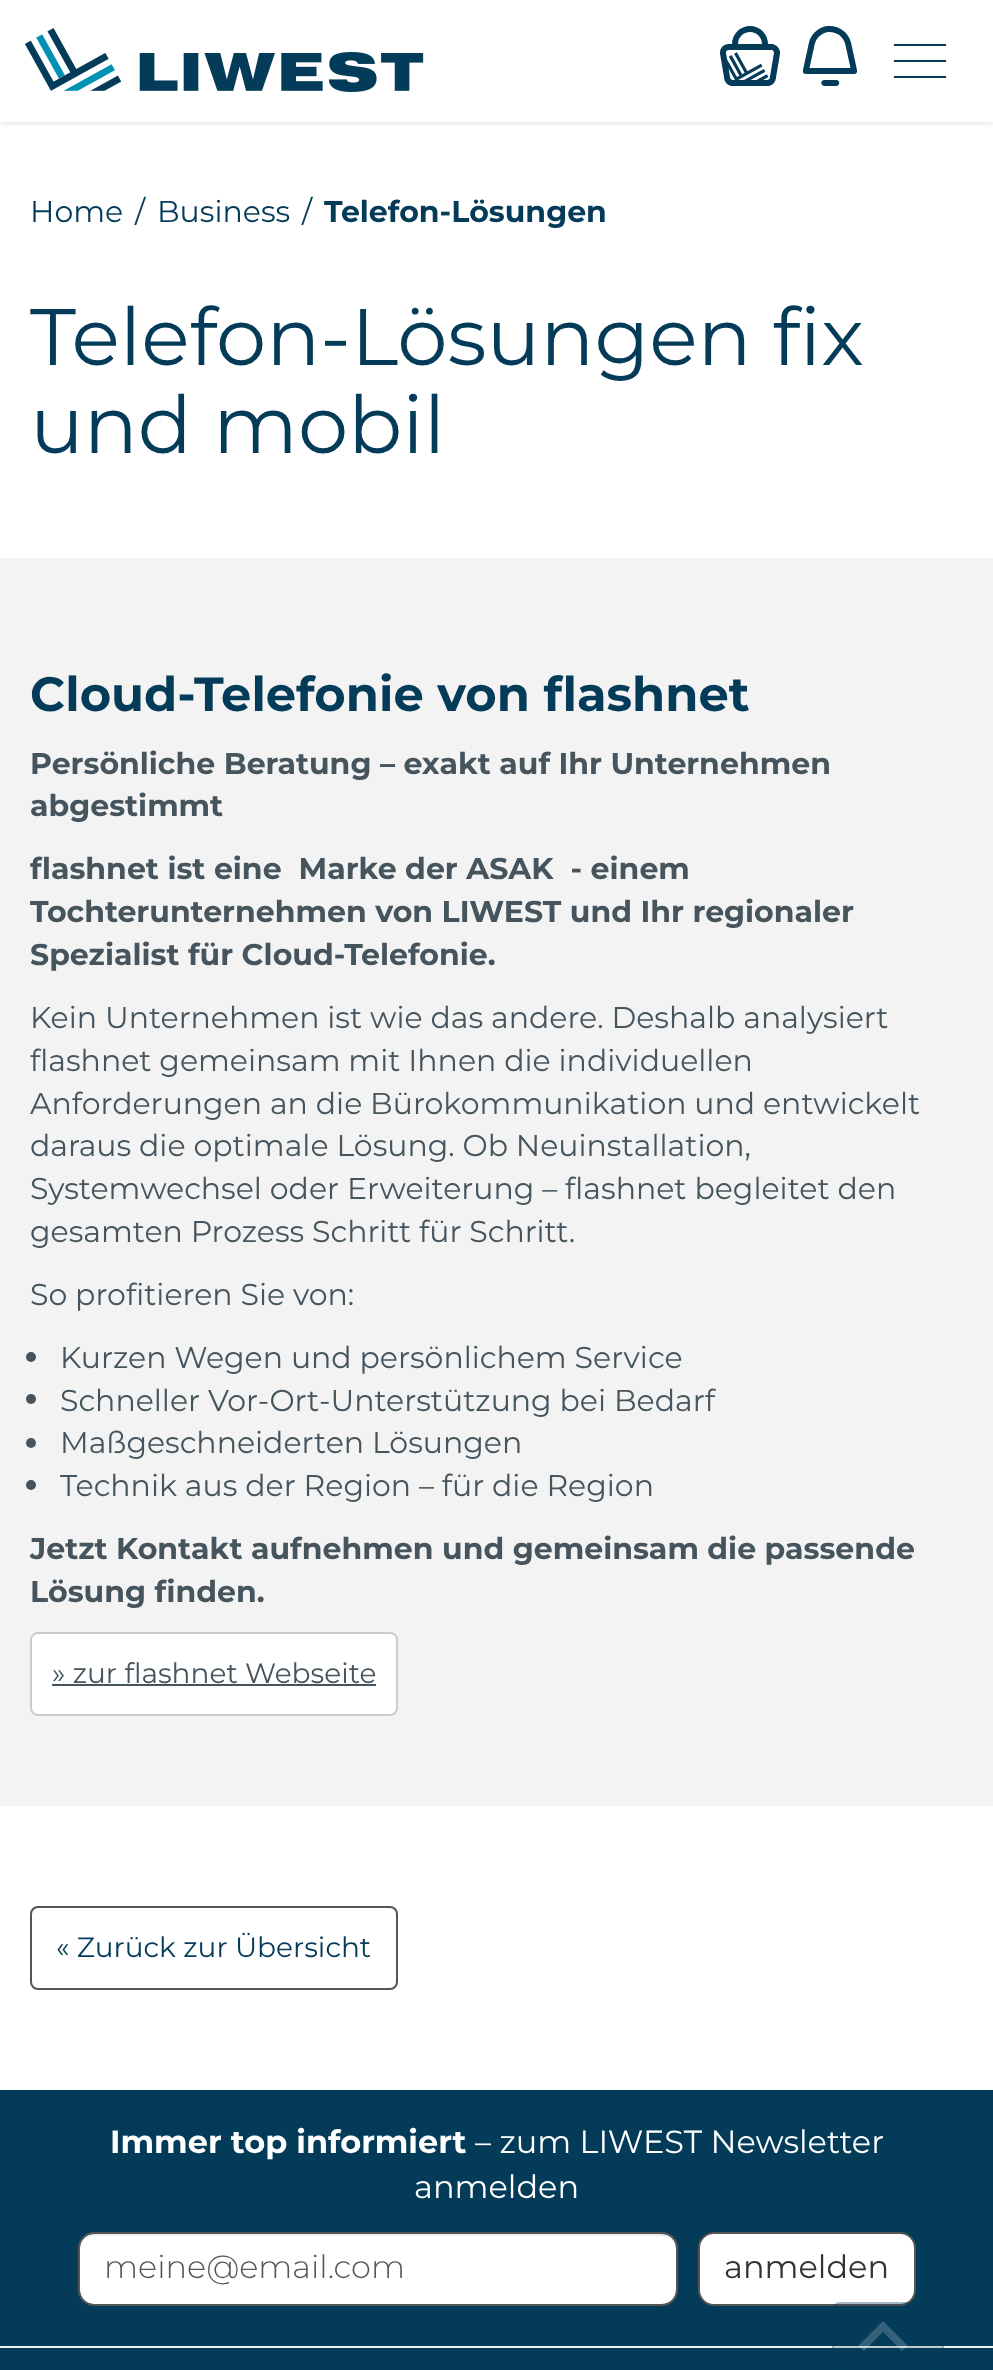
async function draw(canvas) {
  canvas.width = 993;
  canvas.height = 2370;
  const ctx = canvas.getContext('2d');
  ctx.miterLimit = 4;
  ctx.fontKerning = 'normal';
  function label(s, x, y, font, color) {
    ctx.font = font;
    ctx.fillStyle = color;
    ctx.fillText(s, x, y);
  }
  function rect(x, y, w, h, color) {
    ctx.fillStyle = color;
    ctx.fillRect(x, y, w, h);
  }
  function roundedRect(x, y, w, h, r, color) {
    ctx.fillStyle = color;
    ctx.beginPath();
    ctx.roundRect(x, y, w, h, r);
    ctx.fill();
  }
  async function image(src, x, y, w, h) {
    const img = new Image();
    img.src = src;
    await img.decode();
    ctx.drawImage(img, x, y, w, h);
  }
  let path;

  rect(0, 0, 993, 2370, '#fff');
  ctx.save();
  ctx.beginPath();
  ctx.rect(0, 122, 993, 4);
  ctx.clip();
  ctx.fillStyle = '#00000026';
  ctx.filter = 'blur(4px)';
  ctx.beginPath();
  ctx.rect(0, 0, 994, 122);
  ctx.fill();
  ctx.filter = 'none';
  ctx.restore();
  await image('assets/img1.png', 25, 28, 399, 64);
  await image('assets/img2.png', 720, 26, 60, 60);
  await image('assets/img3.png', 802, 26, 56, 60);
  rect(894, 44, 52, 2, '#033b59');
  rect(894, 60, 52, 2, '#033b59');
  rect(894, 76, 52, 2, '#033b59');
  label('Home', 30, 222, '100 30px "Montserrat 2"', '#033b59');
  label('/', 135, 222, '100 30px "Montserrat 2"', '#033b59');
  label('Business', 157, 222, '100 30px "Montserrat 2"', '#033b59');
  label('/', 302, 222, '100 30px "Montserrat 2"', '#033b59');
  label('Telefon-Lösungen', 324, 222, '100 30px Montserrat', '#033b59');
  label('Telefon-Lösungen fix', 30, 365, '100 80px "Montserrat 2"', '#033b59');
  label('und mobil', 30, 453, '100 80px "Montserrat 2"', '#033b59');
  rect(0, 558, 993, 1248, '#f3f3f3');
  label('Cloud-Telefonie von flashnet', 30, 711, '100 48px Montserrat', '#033b59');
  label('Persönliche Beratung – exakt auf Ihr Unternehmen', 30, 774, '100 30px Montserrat', '#45545d');
  label('abgestimmt', 30, 816, '100 30px Montserrat', '#45545d');
  label('flashnet ist eine  Marke der ASAK  - einem', 30, 879, '100 30px Montserrat', '#45545d');
  label('Tochterunternehmen von LIWEST und Ihr regionaler', 30, 922, '100 30px Montserrat', '#45545d');
  label('Spezialist für Cloud-Telefonie.', 30, 965, '100 30px Montserrat', '#45545d');
  label('Kein Unternehmen ist wie das andere. Deshalb analysiert', 30, 1028, '100 30px "Montserrat 2"', '#45545d');
  label('flashnet gemeinsam mit Ihnen die individuellen', 30, 1071, '100 30px "Montserrat 2"', '#45545d');
  label('Anforderungen an die Bürokommunikation und entwickelt', 30, 1114, '100 30px "Montserrat 2"', '#45545d');
  label('daraus die optimale Lösung. Ob Neuinstallation,', 30, 1156, '100 30px "Montserrat 2"', '#45545d');
  label('Systemwechsel oder Erweiterung – flashnet begleitet den', 30, 1199, '100 30px "Montserrat 2"', '#45545d');
  label('gesamten Prozess Schritt für Schritt.', 30, 1242, '100 30px "Montserrat 2"', '#45545d');
  label('So profitieren Sie von:', 30, 1305, '100 30px "Montserrat 2"', '#45545d');
  ctx.beginPath();
  ctx.arc(31, 1357, 5, 0, 2 * Math.PI);
  ctx.fill();
  label('Kurzen Wegen und persönlichem Service', 60, 1368, '100 30px "Montserrat 2"', '#45545d');
  ctx.beginPath();
  ctx.arc(31, 1399, 5, 0, 2 * Math.PI);
  ctx.fill();
  label('Schneller Vor-Ort-Unterstützung bei Bedarf', 60, 1411, '100 30px "Montserrat 2"', '#45545d');
  ctx.beginPath();
  ctx.arc(31, 1443, 5, 0, 2 * Math.PI);
  ctx.fill();
  label('Maßgeschneiderten Lösungen', 60, 1453, '100 30px "Montserrat 2"', '#45545d');
  ctx.beginPath();
  ctx.arc(31, 1485, 5, 0, 2 * Math.PI);
  ctx.fill();
  label('Technik aus der Region – für die Region', 60, 1496, '100 30px "Montserrat 2"', '#45545d');
  label('Jetzt Kontakt aufnehmen und gemeinsam die passende', 30, 1559, '100 30px Montserrat', '#45545d');
  label('Lösung finden.', 30, 1602, '100 30px Montserrat', '#45545d');
  ctx.fillStyle = '#fff';
  ctx.beginPath();
  ctx.roundRect(31, 1633, 366, 82, 7);
  ctx.fill();
  ctx.strokeStyle = '#ccc';
  ctx.lineWidth = 2;
  ctx.stroke();
  label('» zur flashnet Webseite', 52, 1683, '100 28px "Montserrat 2"', '#45545d');
  rect(52, 1684, 324, 2, '#45545d');
  ctx.beginPath();
  ctx.roundRect(31, 1907, 366, 82, 7);
  ctx.strokeStyle = '#555';
  ctx.stroke();
  label('« Zurück zur Übersicht', 56, 1957, '100 28px "Montserrat 2"', '#033b59');
  rect(0, 2090, 993, 280, '#033b59');
  label('Immer top informiert', 110, 2153, '100 32px Montserrat', '#fff');
  label('– zum LIWEST Newsletter', 475, 2153, '100 32px "Montserrat 2"', '#fff');
  label('anmelden', 414, 2198, '100 32px "Montserrat 2"', '#fff');
  roundedRect(80, 2234, 596, 70, 14, '#fff');
  ctx.fillStyle = '#00000012';
  path = new Path2D('M94 2236H662C670 2236 676 2242 676 2250V2248C676 2240 670 2234 662 2234H94C86 2234 80 2240 80 2248V2250C80 2242 86 2236 94 2236Z');
  ctx.fill(path);
  ctx.beginPath();
  ctx.roundRect(79, 2233, 598, 72, 15);
  ctx.stroke();
  label('meine@email.com', 104, 2278, '100 32px "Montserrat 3"', '#555');
  ctx.fillStyle = '#fff';
  ctx.beginPath();
  ctx.roundRect(699, 2233, 216, 72, 15);
  ctx.fill();
  ctx.stroke();
  label('anmelden', 724, 2278, '100 32px "Montserrat 2"', '#333');
  rect(0, 2346, 993, 2, '#eee');
  roundedRect(832, 2302, 112, 68, 8, '#033b5933');
  ctx.beginPath();
  ctx.roundRect(833, 2303, 110, 66, 7);
  ctx.strokeStyle = '#033b5933';
  ctx.stroke();
  ctx.fillStyle = '#ffffff33';
  path = new Path2D('M858 2346L864 2351L883 2332L902 2351L908 2346L883 2321Z');
  ctx.fill(path);
}

draw(document.querySelector('canvas'));
